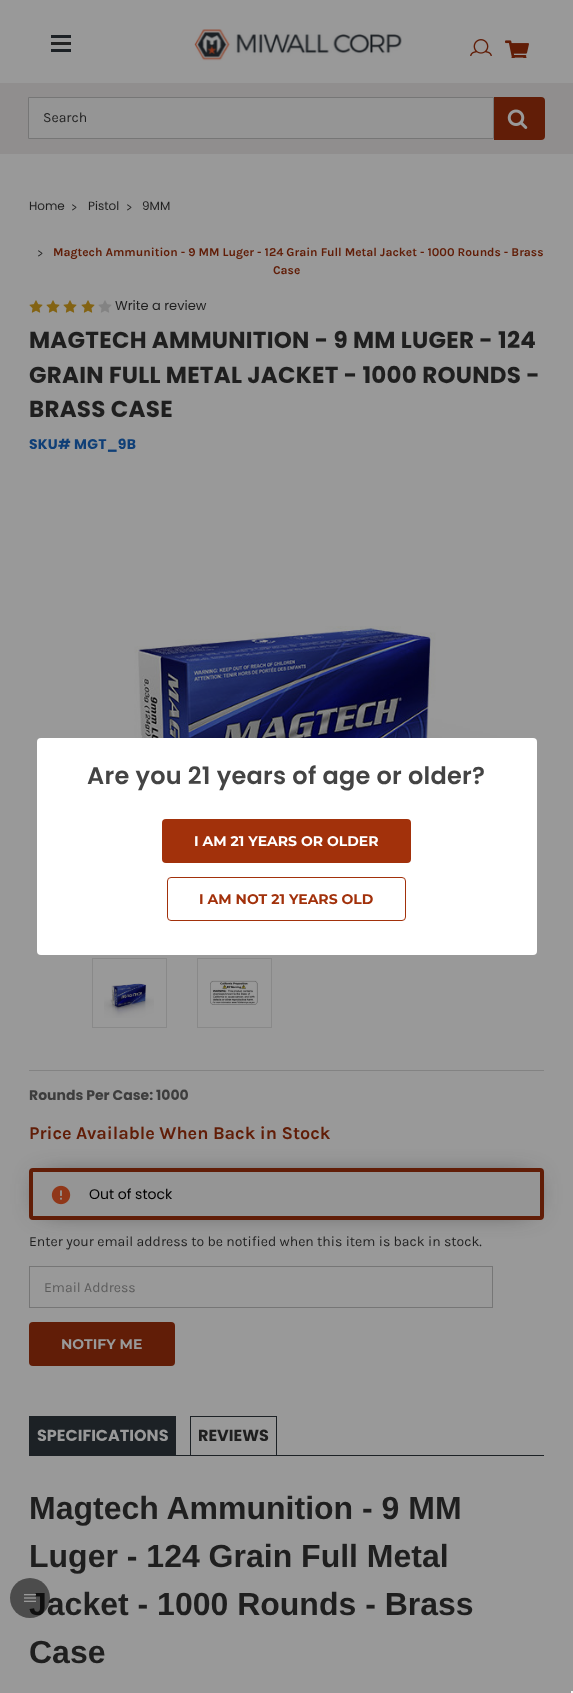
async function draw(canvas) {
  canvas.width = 573;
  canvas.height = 1693;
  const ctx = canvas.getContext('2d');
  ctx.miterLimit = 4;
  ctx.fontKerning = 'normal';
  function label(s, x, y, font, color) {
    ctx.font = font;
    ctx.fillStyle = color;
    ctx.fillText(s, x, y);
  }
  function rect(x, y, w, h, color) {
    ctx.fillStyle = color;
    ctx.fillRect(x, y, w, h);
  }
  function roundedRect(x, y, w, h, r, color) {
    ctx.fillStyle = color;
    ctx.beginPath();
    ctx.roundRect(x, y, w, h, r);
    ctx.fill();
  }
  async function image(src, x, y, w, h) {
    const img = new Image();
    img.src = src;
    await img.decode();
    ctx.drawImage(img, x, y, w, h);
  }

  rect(0, 0, 573, 1693, '#999');
  rect(51, 42, 20, 3, '#222');
  rect(51, 35, 20, 3, '#1c2125');
  rect(51, 49, 20, 3, '#1c2125');
  await image('assets/img1.png', 194, 29, 208, 32);
  await image('assets/img2.png', 470, 39, 22, 17);
  await image('assets/img3.png', 505, 40, 24, 18);
  rect(0, 83, 573, 71, '#908e8e');
  ctx.fillStyle = '#959595';
  ctx.beginPath();
  ctx.rect(28.5, 97.5, 465, 41);
  ctx.fill();
  ctx.strokeStyle = '#767676';
  ctx.stroke();
  label('Search', 43, 122, '14px Karla', '#1f1f1f');
  ctx.fillStyle = '#611d07';
  ctx.beginPath();
  ctx.roundRect(494, 97, 51, 43, [0, 4, 4, 0]);
  ctx.fill();
  await image('assets/img4.png', 507, 109, 21, 20);
  label('Home', 29, 210, '12px Poppins', '#1f1f1f');
  label('>', 71, 211, '12px Karla', '#1f1f1f');
  label('Pistol', 88, 210, '12px Poppins', '#1f1f1f');
  label('>', 126, 211, '12px Karla', '#1f1f1f');
  label('9MM', 142, 210, '12px Poppins', '#1f1f1f');
  label('>', 37, 257, '12px Karla', '#1f1f1f');
  label('Magtech Ammunition - 9 MM Luger - 124 Grain Full Metal Jacket - 1000 Rounds - Brass', 53, 256, 'bold 12px Karla', '#611d07');
  label('Case', 273, 274, 'bold 12px Karla', '#611d07');
  await image('assets/img5.png', 29, 300, 14, 13);
  await image('assets/img5.png', 46, 300, 14, 13);
  await image('assets/img5.png', 63, 300, 14, 13);
  await image('assets/img5.png', 81, 300, 14, 13);
  await image('assets/img6.png', 98, 300, 14, 13);
  label('Write a review', 115, 310, '13px Poppins', '#1f1f1f');
  ctx.letterSpacing = '0.25px';
  label('MAGTECH AMMUNITION - 9 MM LUGER - 124', 29, 348, 'bold 23px Poppins', '#1f1f1f');
  label('GRAIN FULL METAL JACKET - 1000 ROUNDS -', 29, 383, 'bold 23px Poppins', '#1f1f1f');
  label('BRASS CASE', 29, 417, 'bold 23px Poppins', '#1f1f1f');
  label('SKU# MGT_9B', 29, 449, 'bold 14px Poppins', '#0f3f77');
  rect(29, 1070, 515, 1, '#838383');
  ctx.letterSpacing = '0px';
  label('Rounds Per Case: 1000', 29, 1100, 'bold 14px Poppins', '#3d3d3d');
  label('Price Available When Back in Stock', 29, 1139, 'bold 18px Karla', '#611d07');
  ctx.fillStyle = '#1f1f1f';
  ctx.filter = 'blur(14px)';
  ctx.beginPath();
  ctx.rect(43, 1182, 487, 24);
  ctx.fill();
  ctx.filter = 'none';
  ctx.fillStyle = '#959595';
  ctx.beginPath();
  ctx.roundRect(31, 1170, 511, 48, 2);
  ctx.fill();
  ctx.strokeStyle = '#611d07';
  ctx.lineWidth = 4;
  ctx.stroke();
  await image('assets/img7.png', 51, 1185, 20, 20);
  label('Out of stock', 89, 1199, '14px Poppins', '#000');
  label('Enter your email address to be notified when this item is back in stock.', 29, 1246, '14px Karla', '#1f1f1f');
  ctx.strokeStyle = '#767676';
  ctx.lineWidth = 1;
  ctx.strokeRect(29.5, 1266.5, 463, 41);
  label('Email Address', 44, 1292, '14px Karla', '#5c5c5c');
  roundedRect(29, 1322, 146, 44, 4, '#611d07');
  label('NOTIFY ME', 61, 1349, 'bold 14px Montserrat', '#999');
  await image('assets/img8.png', 73, 626, 427, 112);
  ctx.strokeStyle = '#898989';
  ctx.strokeRect(92.5, 958.5, 74, 69);
  await image('assets/img9.png', 104, 983, 50, 35);
  ctx.strokeRect(197.5, 958.5, 74, 69);
  await image('assets/img10.png', 210, 980, 48, 25);
  rect(29, 1455, 515, 1, '#1c2125');
  rect(30, 1417, 145, 38, '#1c2125');
  rect(29, 1416, 147, 1, '#1c2125');
  rect(175, 1416, 1, 39, '#1c2125');
  rect(29, 1416, 1, 39, '#1c2125');
  label('SPECIFICATIONS', 37, 1441, 'bold 16px Poppins', '#999');
  rect(190, 1416, 87, 1, '#1c2125');
  rect(276, 1416, 1, 39, '#1c2125');
  rect(190, 1416, 1, 39, '#1c2125');
  label('REVIEWS', 198, 1441, 'bold 16px Poppins', '#1f1f1f');
  label('Magtech Ammunition - 9 MM', 29, 1519, 'bold 32px Liberation Sans', '#1f1f1f');
  label('Luger - 124 Grain Full Metal', 29, 1567, 'bold 32px Liberation Sans', '#1f1f1f');
  label('Jacket - 1000 Rounds - Brass', 29, 1615, 'bold 32px Liberation Sans', '#1f1f1f');
  label('Case', 29, 1663, 'bold 32px Liberation Sans', '#1f1f1f');
  ctx.fillStyle = '#00000080';
  ctx.beginPath();
  ctx.arc(30, 1598, 20, 0, 2 * Math.PI);
  ctx.fill();
  await image('assets/img11.png', 24, 1594, 12, 8);
  roundedRect(37, 738, 500, 217, 4, '#fff');
  ctx.letterSpacing = '0.25px';
  label('Are you 21 years of age or older?', 87, 784, '600 24px Poppins', '#444');
  roundedRect(162, 819, 249, 44, 4, '#a2310b');
  ctx.letterSpacing = '0px';
  label('I AM 21 YEARS OR OLDER', 194, 846, 'bold 14px Montserrat', '#fff');
  ctx.beginPath();
  ctx.roundRect(167.5, 877.5, 238, 43, 3.5);
  ctx.strokeStyle = '#a2310b';
  ctx.stroke();
  label('I AM NOT 21 YEARS OLD', 199, 904, 'bold 14px Montserrat', '#a2310b');
  rect(571, 1691, 2, 2, '#f5f5f5');
}

draw(document.querySelector('canvas'));
